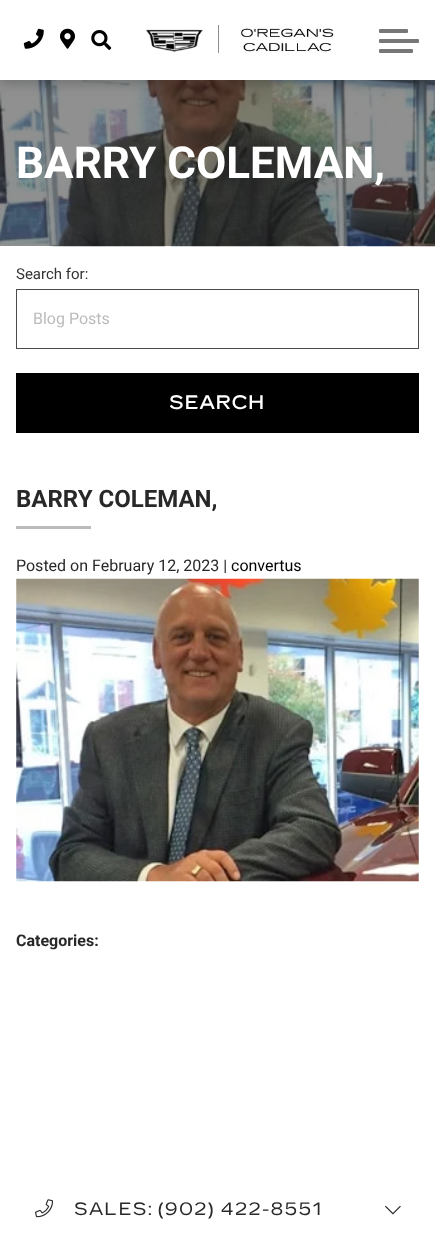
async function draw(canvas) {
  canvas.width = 435;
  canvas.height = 1237;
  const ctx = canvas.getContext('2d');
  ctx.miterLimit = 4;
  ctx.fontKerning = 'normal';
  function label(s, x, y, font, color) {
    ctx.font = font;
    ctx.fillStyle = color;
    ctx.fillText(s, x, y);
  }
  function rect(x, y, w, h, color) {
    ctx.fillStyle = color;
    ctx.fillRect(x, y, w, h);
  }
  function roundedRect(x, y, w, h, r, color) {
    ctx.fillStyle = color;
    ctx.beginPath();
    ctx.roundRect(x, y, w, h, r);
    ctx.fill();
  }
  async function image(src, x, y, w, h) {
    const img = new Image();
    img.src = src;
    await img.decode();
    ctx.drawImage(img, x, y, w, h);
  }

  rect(0, 0, 435, 1237, '#fff');
  await image('assets/img5.png', 0, 80, 435, 167);
  ctx.fillStyle = '#00000033';
  ctx.filter = 'blur(6px)';
  ctx.beginPath();
  ctx.rect(0, 4, 435, 80);
  ctx.fill();
  ctx.filter = 'none';
  rect(0, 0, 435, 80, '#fff');
  await image('assets/img1.png', 23, 28, 21, 21);
  await image('assets/img2.png', 60, 28, 15, 21);
  await image('assets/img3.png', 91, 30, 21, 20);
  await image('assets/img4.png', 146, 25, 188, 28);
  roundedRect(379, 39, 40, 4, 1, '#777');
  roundedRect(379, 29, 29, 4, 1, '#777');
  roundedRect(379, 49, 34, 4, 1, '#777');
  label('BARRY COLEMAN,', 16, 178, 'bold 44px Roboto', '#fff');
  label('Search for:', 16, 279, '15px Roboto', '#333');
  ctx.strokeStyle = '#4b4b4b';
  ctx.strokeRect(16.5, 289.5, 402, 59);
  label('Blog Posts', 33, 324, '16px Roboto', '#bbb');
  rect(16, 373, 403, 60, '#000');
  ctx.letterSpacing = '1.25px';
  label('SEARCH', 169, 409, 'bold 18.75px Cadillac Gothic', '#fff');
  ctx.letterSpacing = '0px';
  label('BARRY COLEMAN,', 16, 507, 'bold 24px Roboto', '#282828');
  rect(16, 526, 75, 3, '#bbb');
  label('Posted on February 12, 2023 |', 16, 571, '16px Roboto', '#282828');
  label('convertus', 231, 571, '16px Roboto', '#000');
  await image('assets/img6.png', 16, 578, 403, 304);
  label('Categories:', 16, 946, 'bold 16px Roboto', '#282828');
  await image('assets/img7.png', 35, 1199, 18, 19);
  ctx.letterSpacing = '1.25px';
  label('SALES:', 74, 1215, '18px Cadillac Gothic', '#282828');
  label('(902) 422-8551', 158, 1215, '18px Cadillac Gothic', '#282828');
  await image('assets/img8.png', 385, 1205, 16, 10);
}

draw(document.querySelector('canvas'));
